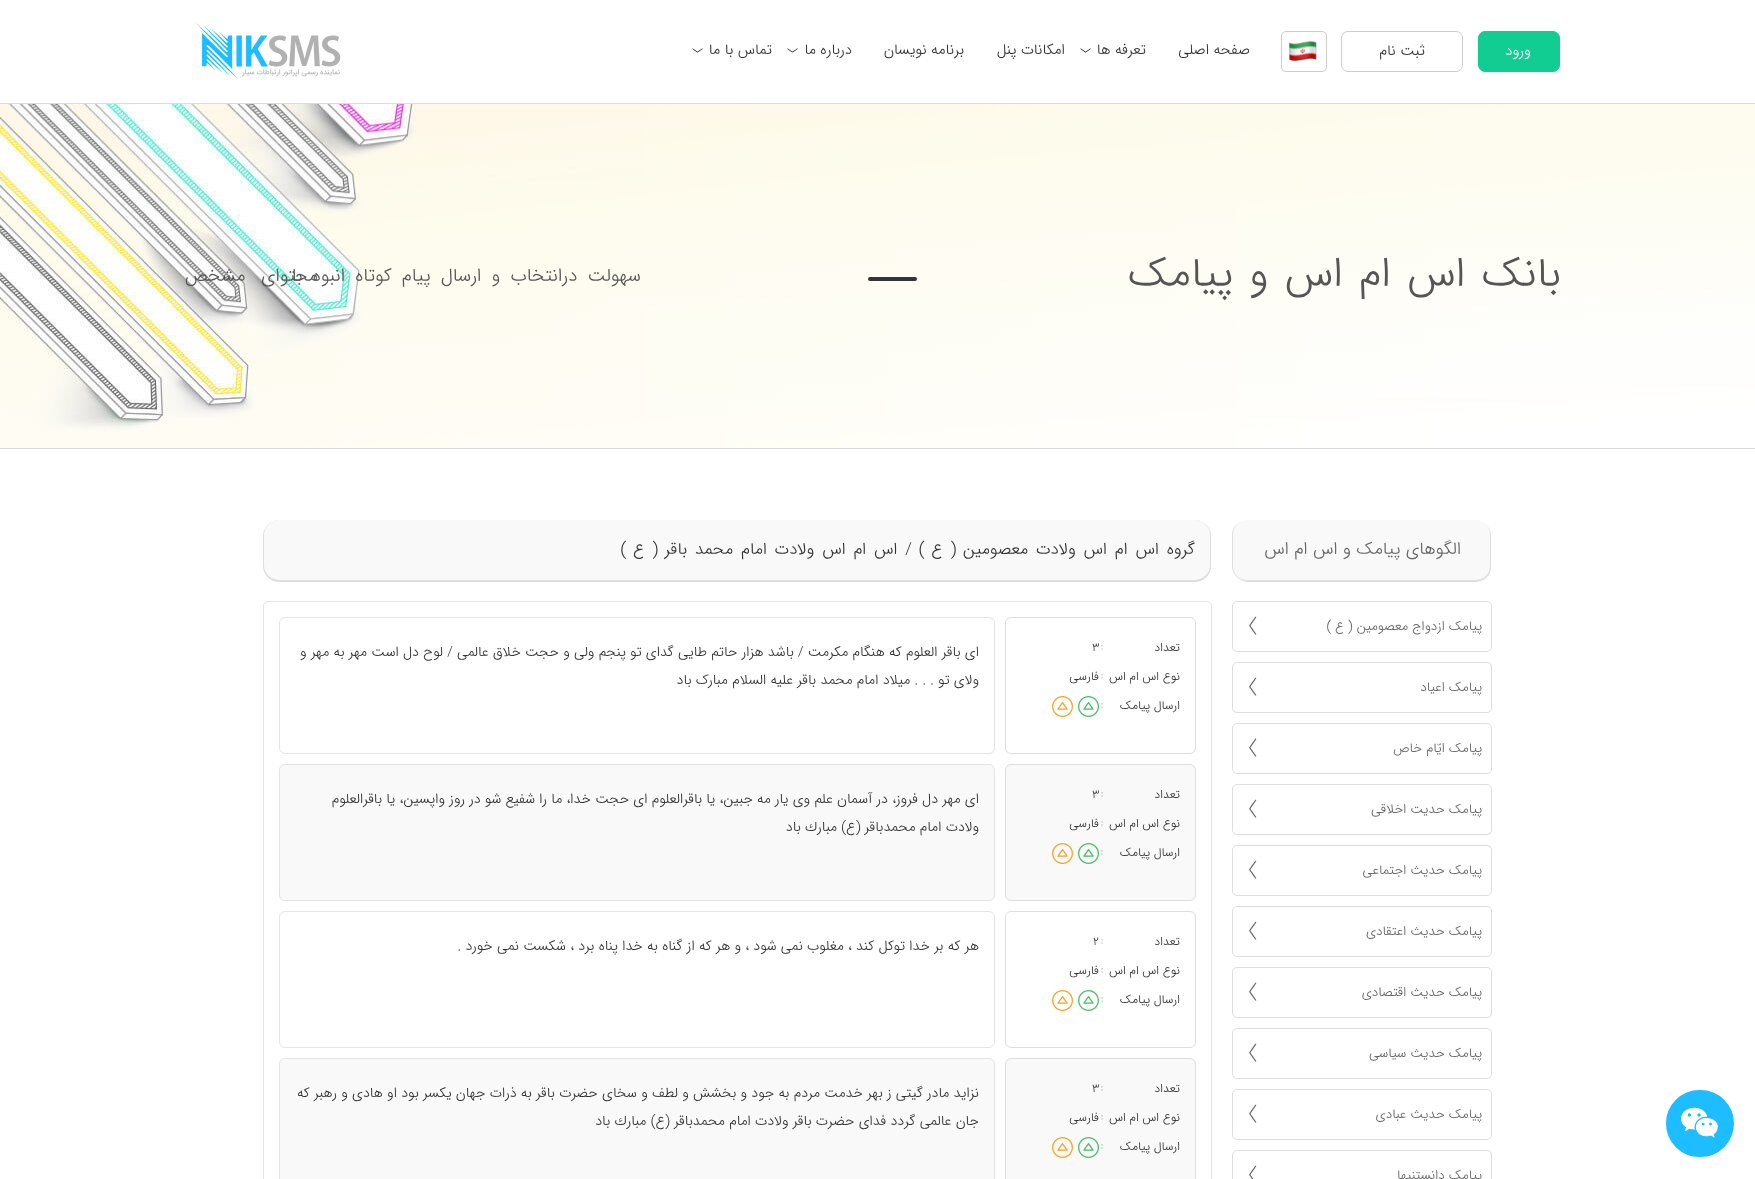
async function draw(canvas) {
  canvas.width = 1755;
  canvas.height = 1179;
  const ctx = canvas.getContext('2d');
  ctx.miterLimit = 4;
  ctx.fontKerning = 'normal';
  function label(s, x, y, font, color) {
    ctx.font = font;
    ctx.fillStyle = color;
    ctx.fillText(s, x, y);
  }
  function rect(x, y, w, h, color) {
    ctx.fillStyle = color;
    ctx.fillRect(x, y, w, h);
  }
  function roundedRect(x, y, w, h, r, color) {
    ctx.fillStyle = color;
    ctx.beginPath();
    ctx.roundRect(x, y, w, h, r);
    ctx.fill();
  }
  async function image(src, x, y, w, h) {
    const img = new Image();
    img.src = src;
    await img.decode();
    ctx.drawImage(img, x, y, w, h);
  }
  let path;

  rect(0, 0, 1755, 1179, '#fff');
  rect(0, 103, 1755, 1, '#ddd');
  ctx.fillStyle = '#11cd92';
  ctx.beginPath();
  ctx.roundRect(1478.5, 31.5, 81, 40, 6.5);
  ctx.fill();
  ctx.strokeStyle = '#11cd92';
  ctx.stroke();
  ctx.direction = 'rtl';
  label('ورود', 1531, 55, '300 14.75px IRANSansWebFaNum', '#fff');
  ctx.beginPath();
  ctx.roundRect(1341.5, 31.5, 121, 40, 6.5);
  ctx.strokeStyle = '#ccc';
  ctx.stroke();
  label('ثبت نام', 1425, 55, '300 14.75px IRANSansWebFaNum', '#333');
  ctx.beginPath();
  ctx.roundRect(1281.5, 31.5, 45, 40, 4.5);
  ctx.stroke();
  await image('assets/img1.png', 1289, 41, 28, 20);
  label('صفحه اصلی', 1250, 54, '300 14.75px IRANSansWebFaNum', '#333');
  label('تعرفه ها', 1146, 54, '300 14.75px IRANSansWebFaNum', '#333');
  await image('assets/img2.png', 1080, 48, 11, 5);
  label('امکانات پنل', 1065, 54, '300 14.75px IRANSansWebFaNum', '#333');
  label('برنامه نویسان', 964, 54, '300 14.75px IRANSansWebFaNum', '#333');
  label('درباره ما', 852, 54, '300 14.75px IRANSansWebFaNum', '#333');
  await image('assets/img2.png', 787, 48, 11, 5);
  label('تماس با ما', 772, 54, '300 14.75px IRANSansWebFaNum', '#333');
  await image('assets/img2.png', 692, 48, 11, 5);
  await image('assets/img3.png', 196, 23, 145, 56);
  await image('assets/img4.png', 0, 104, 1755, 344);
  rect(0, 448, 1755, 1, '#dadada');
  ctx.letterSpacing = '-1px';
  ctx.wordSpacing = '4.25px';
  label('بانک اس ام اس و پیامک', 1561, 286, '300 41.75px IRANSansWebFaNum', '#555');
  roundedRect(868, 277, 49, 4, 2, '#333');
  ctx.wordSpacing = '5.5px';
  label('سهولت درانتخاب و ارسال پیام کوتاه انبوه با', 641, 281, '300 18.6px IRANSansWebFaNum', '#555');
  ctx.wordSpacing = '11px';
  label('محتوای مشخص', 318, 281, '300 18.6px IRANSansWebFaNum', '#555');
  ctx.fillStyle = '#1ebdff';
  ctx.beginPath();
  ctx.roundRect(1665, 1089, 70, 69, 34.5);
  ctx.fill();
  ctx.strokeStyle = '#fff';
  ctx.lineWidth = 2;
  ctx.stroke();
  await image('assets/img5.png', 1681, 1107, 37, 31);
  ctx.fillStyle = '#dedede';
  ctx.filter = 'blur(0.5px)';
  ctx.beginPath();
  ctx.roundRect(1233, 521, 258, 61, 15);
  ctx.fill();
  ctx.filter = 'none';
  roundedRect(1232, 520, 258, 61, 15, '#f9f9f9');
  ctx.fillStyle = '#dedede';
  path = new Path2D('M1247 520H1475C1483 520 1490 527 1490 535V566C1490 574 1483 581 1475 581H1247C1239 581 1232 574 1232 566V535C1232 527 1239 520 1247 520ZM1247 520H1475C1483 520 1490 527 1490 535V566C1490 574 1483 580 1475 580H1247C1239 580 1233 574 1233 566V535C1233 527 1239 520 1247 520Z');
  ctx.fill(path, 'evenodd');
  ctx.letterSpacing = '0px';
  ctx.wordSpacing = '0px';
  label('الگوهای پیامک و اس ام اس', 1461, 554, '300 17.5px IRANSansWebFaNum', '#666');
  ctx.beginPath();
  ctx.roundRect(1232.5, 601.5, 259, 50, 4.5);
  ctx.strokeStyle = '#dedede';
  ctx.lineWidth = 1;
  ctx.stroke();
  label('پیامک ازدواج معصومين ( ع )', 1482, 630, '300 13.2px IRANSansWebFaNum', '#666');
  await image('assets/img6.png', 1249, 616, 8, 19);
  ctx.beginPath();
  ctx.roundRect(1232.5, 662.5, 259, 50, 4.5);
  ctx.stroke();
  label('پیامک اعياد', 1482, 691, '300 13.2px IRANSansWebFaNum', '#666');
  await image('assets/img6.png', 1249, 677, 8, 19);
  ctx.beginPath();
  ctx.roundRect(1232.5, 723.5, 259, 50, 4.5);
  ctx.stroke();
  label('پیامک ايّام خاص', 1482, 752, '300 13.2px IRANSansWebFaNum', '#666');
  await image('assets/img6.png', 1249, 738, 8, 19);
  ctx.beginPath();
  ctx.roundRect(1232.5, 784.5, 259, 50, 4.5);
  ctx.stroke();
  label('پیامک حدیت اخلاقی', 1482, 813, '300 13.2px IRANSansWebFaNum', '#666');
  await image('assets/img6.png', 1249, 799, 8, 19);
  ctx.beginPath();
  ctx.roundRect(1232.5, 845.5, 259, 50, 4.5);
  ctx.stroke();
  label('پیامک حدیث اجتماعی', 1482, 874, '300 13.2px IRANSansWebFaNum', '#666');
  await image('assets/img6.png', 1249, 860, 8, 19);
  ctx.beginPath();
  ctx.roundRect(1232.5, 906.5, 259, 50, 4.5);
  ctx.stroke();
  label('پیامک حدیث اعتقادی', 1482, 935, '300 13.2px IRANSansWebFaNum', '#666');
  await image('assets/img6.png', 1249, 921, 8, 19);
  ctx.beginPath();
  ctx.roundRect(1232.5, 967.5, 259, 50, 4.5);
  ctx.stroke();
  label('پیامک حدیث اقتصادی', 1482, 996, '300 13.2px IRANSansWebFaNum', '#666');
  await image('assets/img6.png', 1249, 982, 8, 19);
  ctx.beginPath();
  ctx.roundRect(1232.5, 1028.5, 259, 50, 4.5);
  ctx.stroke();
  label('پیامک حدیث سیاسی', 1482, 1057, '300 13.2px IRANSansWebFaNum', '#666');
  await image('assets/img6.png', 1249, 1043, 8, 19);
  ctx.beginPath();
  ctx.roundRect(1232.5, 1089.5, 259, 50, 4.5);
  ctx.stroke();
  label('پیامک حدیث عبادی', 1482, 1118, '300 13.2px IRANSansWebFaNum', '#666');
  await image('assets/img6.png', 1249, 1104, 8, 19);
  ctx.beginPath();
  ctx.roundRect(1232.5, 1150.5, 259, 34, 4.5);
  ctx.stroke();
  label('پیامک دانستنیها', 1482, 1179, '300 13.2px IRANSansWebFaNum', '#666');
  await image('assets/img7.png', 1249, 1165, 8, 14);
  ctx.fillStyle = '#dedede';
  ctx.filter = 'blur(0.5px)';
  ctx.beginPath();
  ctx.roundRect(263, 520, 948, 62, 16);
  ctx.fill();
  ctx.filter = 'none';
  roundedRect(264, 520, 946, 60, 15, '#f9f9f9');
  ctx.letterSpacing = '-1px';
  ctx.wordSpacing = '3.75px';
  label('گروه اس ام اس ولادت معصومین ( ع ) / اس ام اس ولادت امام محمد باقر ( ع )', 1195, 554, '300 16.7px IRANSansWebFaNum', '#333');
  ctx.beginPath();
  ctx.roundRect(263.5, 601.5, 948, 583, 4.5);
  ctx.strokeStyle = '#e4e4e4';
  ctx.stroke();
  ctx.beginPath();
  ctx.roundRect(1005.5, 617.5, 190, 136, 5.5);
  ctx.strokeStyle = '#dedede';
  ctx.stroke();
  ctx.letterSpacing = '0px';
  ctx.wordSpacing = '0px';
  label('تعداد', 1180, 651, '300 12px IRANSansWebFaNum', '#333');
  ctx.direction = 'ltr';
  label(':', 1101, 649, '300 9px IRANSansWebFaNum', '#555');
  label('3', 1092, 651, '300 12px IRANSansWebFaNum', '#333');
  ctx.direction = 'rtl';
  label('نوع اس ام اس', 1180, 680, '300 12px IRANSansWebFaNum', '#333');
  ctx.direction = 'ltr';
  label(':', 1101, 678, '300 9px IRANSansWebFaNum', '#555');
  ctx.direction = 'rtl';
  label('فارسی', 1099, 680, '300 12px IRANSansWebFaNum', '#333');
  label('ارسال پیامک', 1180, 709, '300 12px IRANSansWebFaNum', '#333');
  ctx.direction = 'ltr';
  label(':', 1101, 707, '300 9px IRANSansWebFaNum', '#555');
  await image('assets/img8.png', 1078, 696, 21, 21);
  await image('assets/img9.png', 1052, 696, 21, 21);
  ctx.beginPath();
  ctx.roundRect(279.5, 617.5, 715, 136, 5.5);
  ctx.strokeStyle = '#e4e4e4';
  ctx.stroke();
  ctx.direction = 'rtl';
  label('اى باقر العلوم که هنگام مکرمت / باشد هزار حاتم طایى گداى تو پنجم ولى و حجت خلاق عالمى / لوح دل است مهر به مهر و', 979, 656, '300 14px IRANSansWebFaNum', '#333');
  label('ولاى تو . . . میلاد امام محمد باقر علیه السلام مبارک باد', 979, 684, '300 14px IRANSansWebFaNum', '#333');
  ctx.fillStyle = '#f9f9f9';
  ctx.beginPath();
  ctx.roundRect(1005.5, 764.5, 190, 136, 5.5);
  ctx.fill();
  ctx.strokeStyle = '#dedede';
  ctx.stroke();
  label('تعداد', 1180, 798, '300 12px IRANSansWebFaNum', '#333');
  ctx.direction = 'ltr';
  label(':', 1101, 796, '300 9px IRANSansWebFaNum', '#555');
  label('3', 1092, 798, '300 12px IRANSansWebFaNum', '#333');
  ctx.direction = 'rtl';
  label('نوع اس ام اس', 1180, 827, '300 12px IRANSansWebFaNum', '#333');
  ctx.direction = 'ltr';
  label(':', 1101, 825, '300 9px IRANSansWebFaNum', '#555');
  ctx.direction = 'rtl';
  label('فارسی', 1099, 827, '300 12px IRANSansWebFaNum', '#333');
  label('ارسال پیامک', 1180, 856, '300 12px IRANSansWebFaNum', '#333');
  ctx.direction = 'ltr';
  label(':', 1101, 854, '300 9px IRANSansWebFaNum', '#555');
  await image('assets/img10.png', 1078, 843, 21, 21);
  await image('assets/img11.png', 1052, 843, 21, 21);
  ctx.fillStyle = '#f9f9f9';
  ctx.beginPath();
  ctx.roundRect(279.5, 764.5, 715, 136, 5.5);
  ctx.fill();
  ctx.strokeStyle = '#e4e4e4';
  ctx.stroke();
  ctx.direction = 'rtl';
  label('اى مهر دل فروز، در آسمان علم وى يار مه جبين، يا باقرالعلوم اى حجت خدا، ما را شفيع شو در روز واپسين، يا باقرالعلوم', 979, 803, '300 14px IRANSansWebFaNum', '#333');
  label('ولادت امام محمدباقر (ع) مبارك باد', 979, 831, '300 14px IRANSansWebFaNum', '#333');
  ctx.beginPath();
  ctx.roundRect(1005.5, 911.5, 190, 136, 5.5);
  ctx.strokeStyle = '#dedede';
  ctx.stroke();
  label('تعداد', 1180, 945, '300 12px IRANSansWebFaNum', '#333');
  ctx.direction = 'ltr';
  label(':', 1101, 943, '300 9px IRANSansWebFaNum', '#555');
  label('2', 1093, 945, '300 12px IRANSansWebFaNum', '#333');
  ctx.direction = 'rtl';
  label('نوع اس ام اس', 1180, 974, '300 12px IRANSansWebFaNum', '#333');
  ctx.direction = 'ltr';
  label(':', 1101, 972, '300 9px IRANSansWebFaNum', '#555');
  ctx.direction = 'rtl';
  label('فارسی', 1099, 974, '300 12px IRANSansWebFaNum', '#333');
  label('ارسال پیامک', 1180, 1003, '300 12px IRANSansWebFaNum', '#333');
  ctx.direction = 'ltr';
  label(':', 1101, 1001, '300 9px IRANSansWebFaNum', '#555');
  await image('assets/img8.png', 1078, 990, 21, 21);
  await image('assets/img9.png', 1052, 990, 21, 21);
  ctx.beginPath();
  ctx.roundRect(279.5, 911.5, 715, 136, 5.5);
  ctx.strokeStyle = '#e4e4e4';
  ctx.stroke();
  ctx.direction = 'rtl';
  label('هر که بر خدا توکل کند ، مغلوب نمی شود ، و هر که از گناه به خدا پناه برد ، شکست نمی خورد .', 979, 950, '300 14px IRANSansWebFaNum', '#333');
  ctx.fillStyle = '#f9f9f9';
  ctx.beginPath();
  ctx.roundRect(1005.5, 1058.5, 190, 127, 5.5);
  ctx.fill();
  ctx.strokeStyle = '#dedede';
  ctx.stroke();
  label('تعداد', 1180, 1092, '300 12px IRANSansWebFaNum', '#333');
  ctx.direction = 'ltr';
  label(':', 1101, 1090, '300 9px IRANSansWebFaNum', '#555');
  label('3', 1092, 1092, '300 12px IRANSansWebFaNum', '#333');
  ctx.direction = 'rtl';
  label('نوع اس ام اس', 1180, 1121, '300 12px IRANSansWebFaNum', '#333');
  ctx.direction = 'ltr';
  label(':', 1101, 1119, '300 9px IRANSansWebFaNum', '#555');
  ctx.direction = 'rtl';
  label('فارسی', 1099, 1121, '300 12px IRANSansWebFaNum', '#333');
  label('ارسال پیامک', 1180, 1150, '300 12px IRANSansWebFaNum', '#333');
  ctx.direction = 'ltr';
  label(':', 1101, 1148, '300 9px IRANSansWebFaNum', '#555');
  await image('assets/img10.png', 1078, 1137, 21, 21);
  await image('assets/img11.png', 1052, 1137, 21, 21);
  ctx.fillStyle = '#f9f9f9';
  ctx.beginPath();
  ctx.roundRect(279.5, 1058.5, 715, 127, 5.5);
  ctx.fill();
  ctx.strokeStyle = '#e4e4e4';
  ctx.stroke();
  ctx.direction = 'rtl';
  label('نزايد مادر گيتى ز بهر خدمت مردم به جود و بخشش و لطف و سخاى حضرت باقر به ذرات جهان يكسر بود او هادى و رهبر كه', 979, 1097, '300 14px IRANSansWebFaNum', '#333');
  label('جان عالمى گردد فداى حضرت باقر ولادت امام محمدباقر (ع) مبارك باد', 979, 1125, '300 14px IRANSansWebFaNum', '#333');
}

draw(document.querySelector('canvas'));
